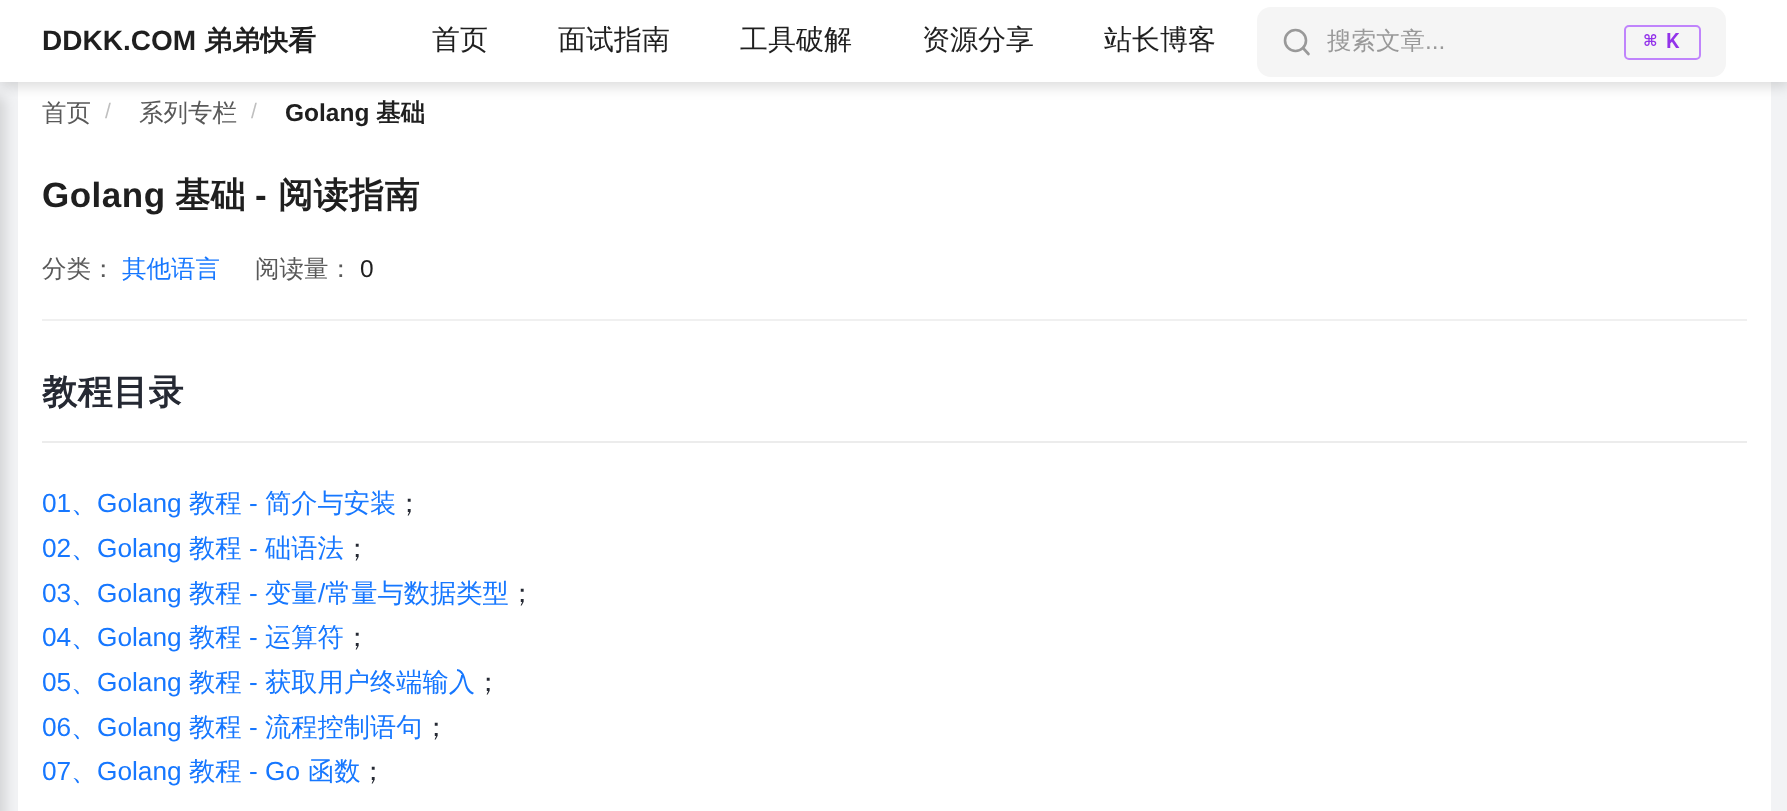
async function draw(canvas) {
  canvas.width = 1787;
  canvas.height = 811;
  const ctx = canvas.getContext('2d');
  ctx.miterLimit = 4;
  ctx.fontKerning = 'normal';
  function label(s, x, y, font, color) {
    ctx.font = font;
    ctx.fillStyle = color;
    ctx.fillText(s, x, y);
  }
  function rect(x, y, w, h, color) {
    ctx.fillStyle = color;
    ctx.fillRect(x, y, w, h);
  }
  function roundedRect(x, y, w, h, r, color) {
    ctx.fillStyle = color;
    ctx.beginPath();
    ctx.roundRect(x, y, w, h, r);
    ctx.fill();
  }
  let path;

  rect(0, 0, 1787, 811, '#f2f3f5');
  rect(18, 82, 1753, 729, '#fff');
  ctx.fillStyle = '#00000026';
  ctx.filter = 'blur(7px)';
  ctx.beginPath();
  ctx.rect(0, 4, 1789, 82);
  ctx.fill();
  ctx.filter = 'none';
  rect(0, 0, 1787, 82, '#fff');
  label('DDKK.COM', 42, 50, 'bold 28px Liberation Sans', '#1f1f1f');
  label('弟弟快看', 204, 50, 'bold 28px WenQuanYi Zen Hei', '#1f1f1f');
  label('首页', 432, 49, '500 28px WenQuanYi Zen Hei', '#1f1f1f');
  label('面试指南', 558, 49, '500 28px WenQuanYi Zen Hei', '#1f1f1f');
  label('工具破解', 740, 49, '500 28px WenQuanYi Zen Hei', '#1f1f1f');
  label('资源分享', 922, 49, '500 28px WenQuanYi Zen Hei', '#1f1f1f');
  label('站长博客', 1104, 49, '500 28px WenQuanYi Zen Hei', '#1f1f1f');
  roundedRect(1257, 7, 469, 70, 14, '#f5f5f5');
  ctx.beginPath();
  ctx.arc(1295.5, 40.5, 10.5, 0, 2 * Math.PI);
  ctx.strokeStyle = '#999';
  ctx.lineWidth = 2.6;
  ctx.stroke();
  path = new Path2D('M1308.5 54L1303 48');
  ctx.lineCap = 'round';
  ctx.lineJoin = 'round';
  ctx.stroke(path);
  label('搜索文章', 1327, 49, '500 24.5px WenQuanYi Zen Hei', '#999');
  label('...', 1425, 49, '24.5px Liberation Sans', '#999');
  ctx.beginPath();
  ctx.roundRect(1625, 26, 75, 33, 4);
  ctx.strokeStyle = '#c084fc';
  ctx.lineWidth = 2;
  ctx.lineJoin = 'miter';
  ctx.stroke();
  ctx.letterSpacing = '2px';
  label('⌘', 1644, 48, 'bold 21px DejaVu Sans Mono', '#9333ea');
  label('K', 1666, 48, '600 21px Roboto', '#9333ea');
  ctx.fillStyle = '#00000026';
  ctx.filter = 'blur(7px)';
  ctx.beginPath();
  ctx.roundRect(-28, 96, 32, 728, 7);
  ctx.fill();
  ctx.filter = 'none';
  ctx.letterSpacing = '0px';
  label('首页', 42, 121, '500 24.5px WenQuanYi Zen Hei', '#595959');
  label('/', 105, 118, '21px Liberation Sans', '#bfbfbf');
  label('系列专栏', 139, 121, '500 24.5px WenQuanYi Zen Hei', '#595959');
  label('/', 251, 118, '21px Liberation Sans', '#bfbfbf');
  label('Golang', 285, 121, 'bold 24.5px Liberation Sans', '#1f1f1f');
  label('基础', 376, 121, 'bold 24.5px WenQuanYi Zen Hei', '#1f1f1f');
  ctx.letterSpacing = '0.5px';
  label('Golang', 42, 207, 'bold 35px Liberation Sans', '#1f1f1f');
  label('基础', 175, 207, 'bold 35px WenQuanYi Zen Hei', '#1f1f1f');
  label('-', 255, 207, 'bold 35px Liberation Sans', '#1f1f1f');
  label('阅读指南', 278, 207, 'bold 35px WenQuanYi Zen Hei', '#1f1f1f');
  rect(42, 319, 1705, 2, '#f0f0f0');
  ctx.letterSpacing = '0px';
  label('分类：', 42, 277, '500 24.5px WenQuanYi Zen Hei', '#595959');
  label('其他语言', 122, 277, '500 24.5px WenQuanYi Zen Hei', '#1677ff');
  label('阅读量：', 255, 277, '500 24.5px WenQuanYi Zen Hei', '#595959');
  label('0', 360, 277, '24.5px Liberation Sans', '#1f1f1f');
  rect(42, 441, 1705, 2, '#ececec');
  ctx.letterSpacing = '0.5px';
  label('教程目录', 42, 404, 'bold 35px WenQuanYi Zen Hei', '#252933');
  ctx.letterSpacing = '0px';
  label('01', 42, 512, '26.25px Liberation Sans', '#1677ff');
  label('Golang', 97, 512, '26.25px Liberation Sans', '#1677ff');
  label('教程', 189, 512, '500 26.25px WenQuanYi Zen Hei', '#1677ff');
  label('-', 249, 512, '26.25px Liberation Sans', '#1677ff');
  label('简介与安装', 265, 512, '500 26.25px WenQuanYi Zen Hei', '#1677ff');
  label('；', 396, 512, '500 26.25px WenQuanYi Zen Hei', '#252933');
  label('、', 71, 512, '500 26.25px WenQuanYi Zen Hei', '#1677ff');
  label('02', 42, 557, '26.25px Liberation Sans', '#1677ff');
  label('Golang', 97, 557, '26.25px Liberation Sans', '#1677ff');
  label('教程', 189, 557, '500 26.25px WenQuanYi Zen Hei', '#1677ff');
  label('-', 249, 557, '26.25px Liberation Sans', '#1677ff');
  label('础语法', 265, 557, '500 26.25px WenQuanYi Zen Hei', '#1677ff');
  label('；', 344, 557, '500 26.25px WenQuanYi Zen Hei', '#252933');
  label('、', 71, 557, '500 26.25px WenQuanYi Zen Hei', '#1677ff');
  label('03', 42, 602, '26.25px Liberation Sans', '#1677ff');
  label('Golang', 97, 602, '26.25px Liberation Sans', '#1677ff');
  label('教程', 189, 602, '500 26.25px WenQuanYi Zen Hei', '#1677ff');
  label('-', 249, 602, '26.25px Liberation Sans', '#1677ff');
  label('变量', 265, 602, '500 26.25px WenQuanYi Zen Hei', '#1677ff');
  label('/', 318, 602, '26.25px Liberation Sans', '#1677ff');
  label('常量与数据类型', 325, 602, '500 26.25px WenQuanYi Zen Hei', '#1677ff');
  label('；', 509, 602, '500 26.25px WenQuanYi Zen Hei', '#252933');
  label('、', 71, 602, '500 26.25px WenQuanYi Zen Hei', '#1677ff');
  label('04', 42, 646, '26.25px Liberation Sans', '#1677ff');
  label('Golang', 97, 646, '26.25px Liberation Sans', '#1677ff');
  label('教程', 189, 646, '500 26.25px WenQuanYi Zen Hei', '#1677ff');
  label('-', 249, 646, '26.25px Liberation Sans', '#1677ff');
  label('运算符', 265, 646, '500 26.25px WenQuanYi Zen Hei', '#1677ff');
  label('；', 344, 646, '500 26.25px WenQuanYi Zen Hei', '#252933');
  label('、', 71, 646, '500 26.25px WenQuanYi Zen Hei', '#1677ff');
  label('05', 42, 691, '26.25px Liberation Sans', '#1677ff');
  label('Golang', 97, 691, '26.25px Liberation Sans', '#1677ff');
  label('教程', 189, 691, '500 26.25px WenQuanYi Zen Hei', '#1677ff');
  label('-', 249, 691, '26.25px Liberation Sans', '#1677ff');
  label('获取用户终端输入', 265, 691, '500 26.25px WenQuanYi Zen Hei', '#1677ff');
  label('；', 475, 691, '500 26.25px WenQuanYi Zen Hei', '#252933');
  label('、', 71, 691, '500 26.25px WenQuanYi Zen Hei', '#1677ff');
  label('06', 42, 736, '26.25px Liberation Sans', '#1677ff');
  label('Golang', 97, 736, '26.25px Liberation Sans', '#1677ff');
  label('教程', 189, 736, '500 26.25px WenQuanYi Zen Hei', '#1677ff');
  label('-', 249, 736, '26.25px Liberation Sans', '#1677ff');
  label('流程控制语句', 265, 736, '500 26.25px WenQuanYi Zen Hei', '#1677ff');
  label('；', 423, 736, '500 26.25px WenQuanYi Zen Hei', '#252933');
  label('、', 71, 736, '500 26.25px WenQuanYi Zen Hei', '#1677ff');
  label('07', 42, 780, '26.25px Liberation Sans', '#1677ff');
  label('、', 71, 780, '500 26.25px WenQuanYi Zen Hei', '#1677ff');
  label('Golang', 97, 780, '26.25px Liberation Sans', '#1677ff');
  label('教程', 189, 780, '500 26.25px WenQuanYi Zen Hei', '#1677ff');
  label('- Go', 249, 780, '26.25px Liberation Sans', '#1677ff');
  label('函数', 308, 780, '500 26.25px WenQuanYi Zen Hei', '#1677ff');
  label('；', 360, 780, '500 26.25px WenQuanYi Zen Hei', '#252933');
}

draw(document.querySelector('canvas'));
